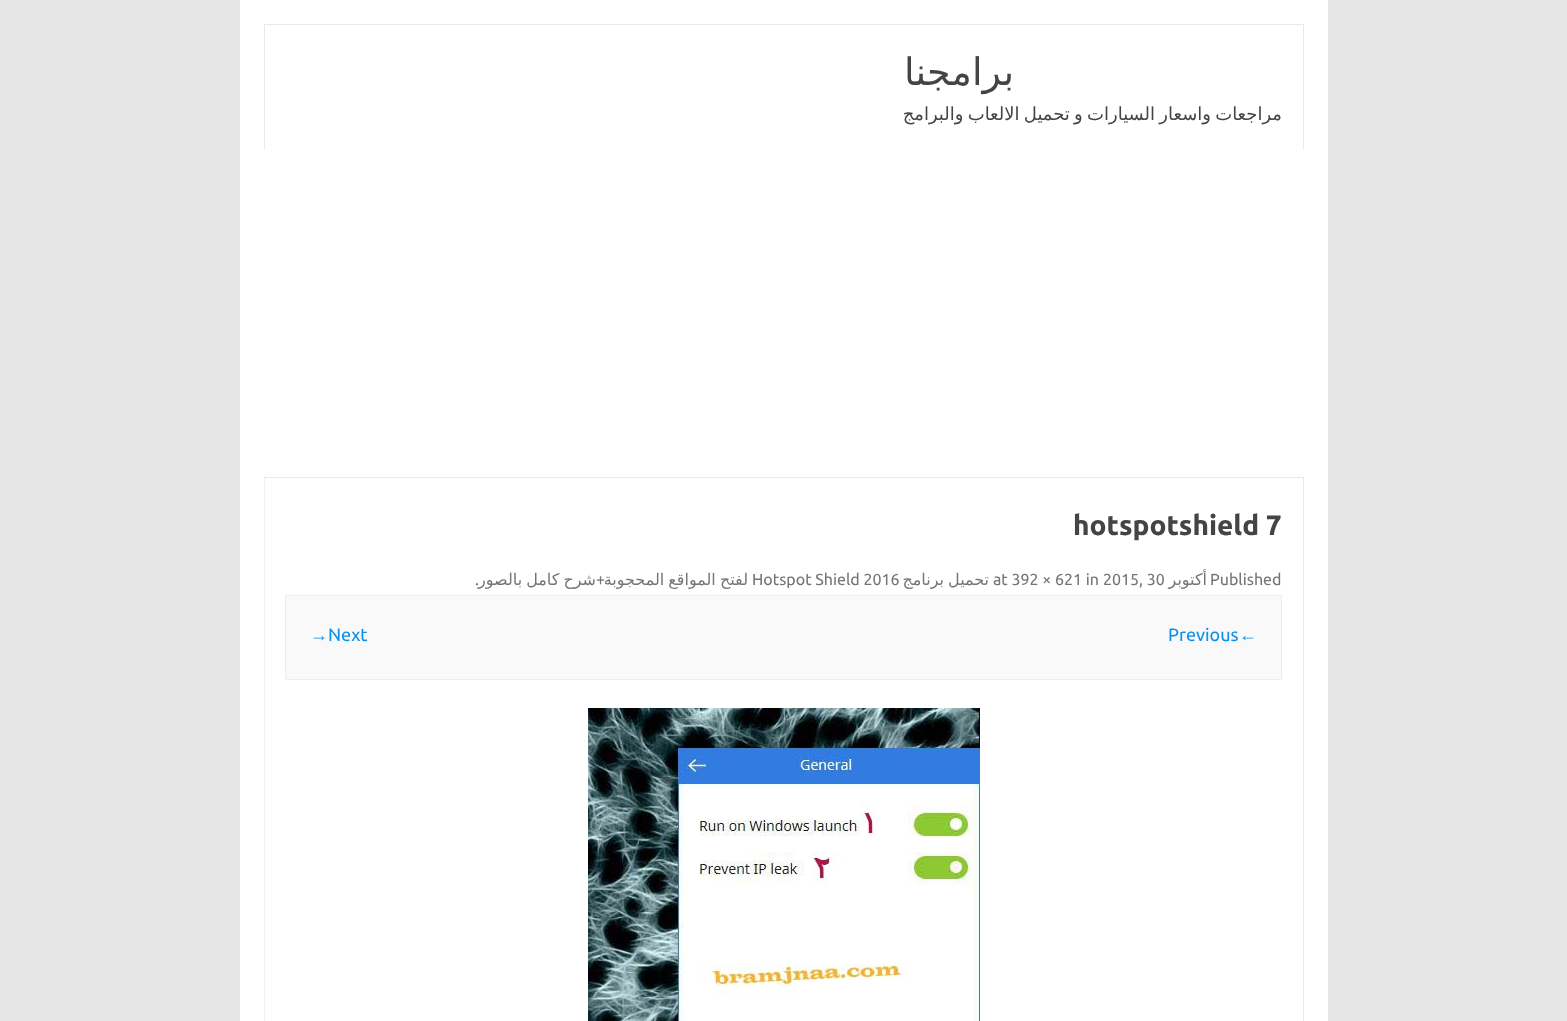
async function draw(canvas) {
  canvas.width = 1567;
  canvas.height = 1021;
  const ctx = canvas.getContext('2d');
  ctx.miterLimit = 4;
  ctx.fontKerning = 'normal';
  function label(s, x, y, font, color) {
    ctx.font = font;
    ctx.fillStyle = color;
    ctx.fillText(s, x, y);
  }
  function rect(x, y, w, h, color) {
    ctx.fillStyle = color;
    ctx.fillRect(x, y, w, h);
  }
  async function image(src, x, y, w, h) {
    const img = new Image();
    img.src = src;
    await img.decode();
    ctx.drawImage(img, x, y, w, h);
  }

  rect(0, 0, 1567, 1021, '#e6e6e6');
  rect(240, 0, 1088, 1021, '#fff');
  rect(264, 24, 1040, 1, '#e9e9e9');
  rect(1303, 24, 1, 125, '#e9e9e9');
  rect(264, 24, 1, 125, '#e9e9e9');
  ctx.direction = 'rtl';
  label('برامجنا', 1014, 85, '38px DejaVu Sans', '#444');
  ctx.wordSpacing = '-1.5px';
  label('مراجعات واسعار السيارات و تحميل الالعاب والبرامج', 1282, 120, '18px DejaVu Sans', '#444');
  ctx.strokeStyle = '#e9e9e9';
  ctx.strokeRect(264.5, 477.5, 1039, 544);
  rect(264, 478, 1, 543, '#f1f1f1');
  ctx.wordSpacing = '0px';
  ctx.direction = 'ltr';
  label('hotspotshield 7', 1073, 535, 'bold 28px Ubuntu', '#444');
  label('Published', 1210, 585, '16px Ubuntu', '#757575');
  ctx.direction = 'rtl';
  label('أكتوبر', 1207, 585, '16px DejaVu Sans', '#757575');
  ctx.direction = 'ltr';
  label('2015, 30', 1103, 585, '16px Ubuntu', '#757575');
  label('at 392 × 621 in', 993, 585, '16px Ubuntu', '#757575');
  ctx.wordSpacing = '-1px';
  ctx.direction = 'rtl';
  label('تحميل برنامج', 989, 585, '16px DejaVu Sans', '#757575');
  ctx.wordSpacing = '0px';
  ctx.direction = 'ltr';
  label('Hotspot Shield 2016', 752, 585, '16px Ubuntu', '#757575');
  ctx.wordSpacing = '-1px';
  ctx.direction = 'rtl';
  label('لفتح المواقع المحجوبة', 748, 585, '16px DejaVu Sans', '#757575');
  label('شرح كامل بالصور', 596, 585, '16px DejaVu Sans', '#757575');
  ctx.wordSpacing = '0px';
  label('+', 605, 585, '16px Ubuntu', '#757575');
  ctx.direction = 'ltr';
  label('.', 475, 585, '16px Ubuntu', '#757575');
  ctx.fillStyle = '#f9f9f9';
  ctx.beginPath();
  ctx.rect(285.5, 595.5, 996, 84);
  ctx.fill();
  ctx.strokeStyle = '#ededed';
  ctx.stroke();
  label('←', 1239, 641, '18px Liberation Sans', '#0b91ea');
  label('Previous', 1168, 641, '18px Ubuntu', '#0b91ea');
  label('Next', 328, 641, '18px Ubuntu', '#0b91ea');
  label('→', 310, 641, '18px Liberation Sans', '#0b91ea');
  await image('assets/img1.png', 588, 708, 392, 313);
}

draw(document.querySelector('canvas'));
